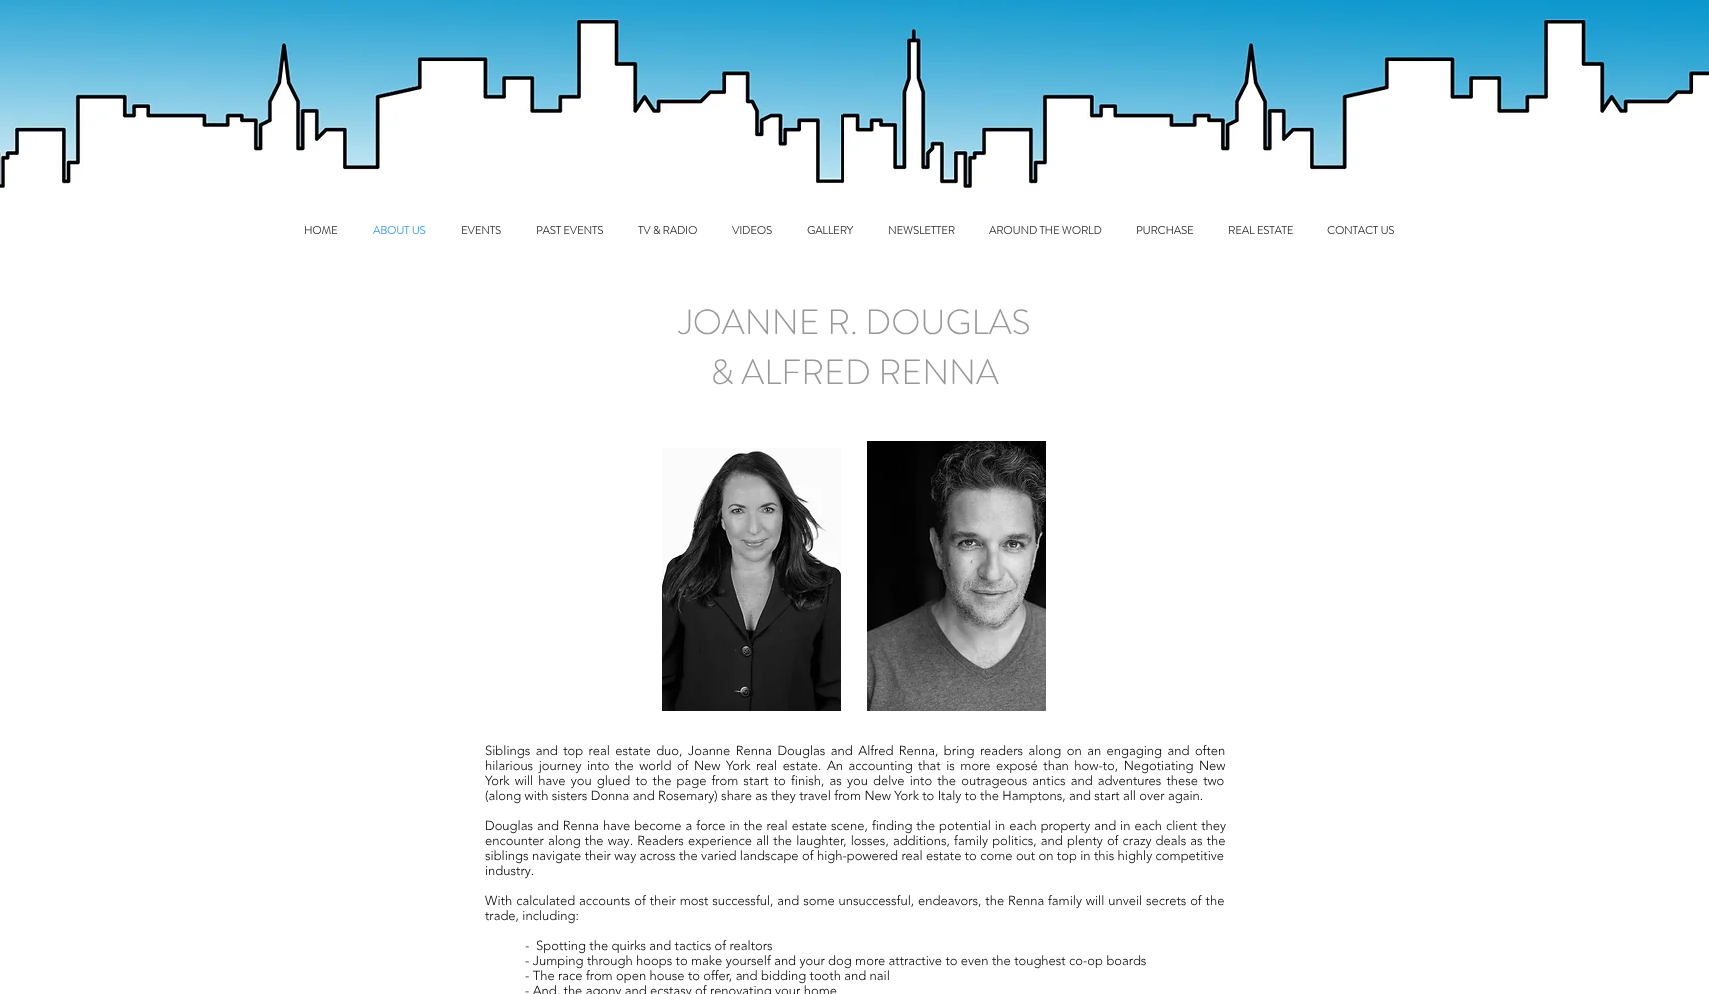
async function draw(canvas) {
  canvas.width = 1709;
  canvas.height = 994;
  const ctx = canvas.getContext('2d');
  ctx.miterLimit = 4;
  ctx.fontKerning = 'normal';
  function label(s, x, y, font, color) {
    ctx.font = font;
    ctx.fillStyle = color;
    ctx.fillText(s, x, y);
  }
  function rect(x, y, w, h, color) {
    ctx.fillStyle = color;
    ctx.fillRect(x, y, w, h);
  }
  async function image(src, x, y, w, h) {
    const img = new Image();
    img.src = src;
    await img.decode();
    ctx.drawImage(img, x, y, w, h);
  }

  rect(0, 0, 1709, 994, '#fff');
  await image('assets/img1.png', 0, 0, 1709, 188);
  label('HOME', 304, 234, 'bold 11px "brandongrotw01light"', '#333');
  label('ABOUT US', 373, 234, 'bold 11px "brandongrotw01light"', '#3d9be9');
  label('EVENTS', 461, 234, 'bold 11px "brandongrotw01light"', '#333');
  label('PAST EVENTS', 536, 234, 'bold 11px "brandongrotw01light"', '#333');
  label('TV & RADIO', 638, 234, 'bold 11px "brandongrotw01light"', '#333');
  label('VIDEOS', 732, 234, 'bold 11px "brandongrotw01light"', '#333');
  label('GALLERY', 807, 234, 'bold 11px "brandongrotw01light"', '#333');
  label('NEWSLETTER', 888, 234, 'bold 11px "brandongrotw01light"', '#333');
  label('AROUND THE WORLD', 989, 234, 'bold 11px "brandongrotw01light"', '#333');
  label('PURCHASE', 1136, 234, 'bold 11px "brandongrotw01light"', '#333');
  label('REAL ESTATE', 1228, 234, 'bold 11px "brandongrotw01light"', '#333');
  label('CONTACT US', 1327, 234, 'bold 11px "brandongrotw01light"', '#333');
  label('JOANNE R. DOUGLAS', 679, 334, '300 35px "brandongrotw01light"', '#999');
  label('& ALFRED RENNA', 710, 384, '300 35px "brandongrotw01light"', '#999');
  await image('assets/img2.png', 662, 448, 179, 263);
  await image('assets/img3.png', 867, 441, 179, 270);
  ctx.wordSpacing = '2.1px';
  label('Siblings and top real estate duo, Joanne Renna Douglas and Alfred Renna, bring readers along on an engaging and often', 485, 755, '300 13px "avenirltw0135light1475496"', '#000');
  label('hilarious journey into the world of New York real estate. An accounting that is more exposé than how-to, Negotiating New', 485, 770, '300 13px "avenirltw0135light1475496"', '#000');
  ctx.wordSpacing = '1.75px';
  label('York will have you glued to the page from start to finish, as you delve into the outrageous antics and adventures these two', 485, 785, '300 13px "avenirltw0135light1475496"', '#000');
  ctx.wordSpacing = '0px';
  label('(along with sisters Donna and Rosemary) share as they travel from New York to Italy to the Hamptons, and start all over again.', 485, 800, '300 13px "avenirltw0135light1475496"', '#000');
  ctx.wordSpacing = '0.6px';
  label('Douglas and Renna have become a force in the real estate scene, finding the potential in each property and in each client they', 485, 830, '300 13px "avenirltw0135light1475496"', '#000');
  ctx.wordSpacing = '0.75px';
  label('encounter along the way. Readers experience all the laughter, losses, additions, family politics, and plenty of crazy deals as the', 485, 845, '300 13px "avenirltw0135light1475496"', '#000');
  ctx.wordSpacing = '0px';
  label('siblings navigate their way across the varied landscape of high-powered real estate to come out on top in this highly competitive', 485, 860, '300 13px "avenirltw0135light1475496"', '#000');
  label('industry.', 485, 875, '300 13px "avenirltw0135light1475496"', '#000');
  ctx.wordSpacing = '0.5px';
  label('With calculated accounts of their most successful, and some unsuccessful, endeavors, the Renna family will unveil secrets of the', 485, 905, '300 13px "avenirltw0135light1475496"', '#000');
  ctx.wordSpacing = '0px';
  label('trade, including:', 485, 920, '300 13px "avenirltw0135light1475496"', '#000');
  label('-  Spotting the quirks and tactics of realtors', 525, 950, '300 13px "avenirltw0135light1475496"', '#000');
  label('- Jumping through hoops to make yourself and your dog more attractive to even the toughest co-op boards', 525, 965, '300 13px "avenirltw0135light1475496"', '#000');
  label('- The race from open house to offer, and bidding tooth and nail', 525, 980, '300 13px "avenirltw0135light1475496"', '#000');
  label('- And, the agony and ecstasy of renovating your home', 525, 995, '300 13px "avenirltw0135light1475496"', '#000');
}

draw(document.querySelector('canvas'));
